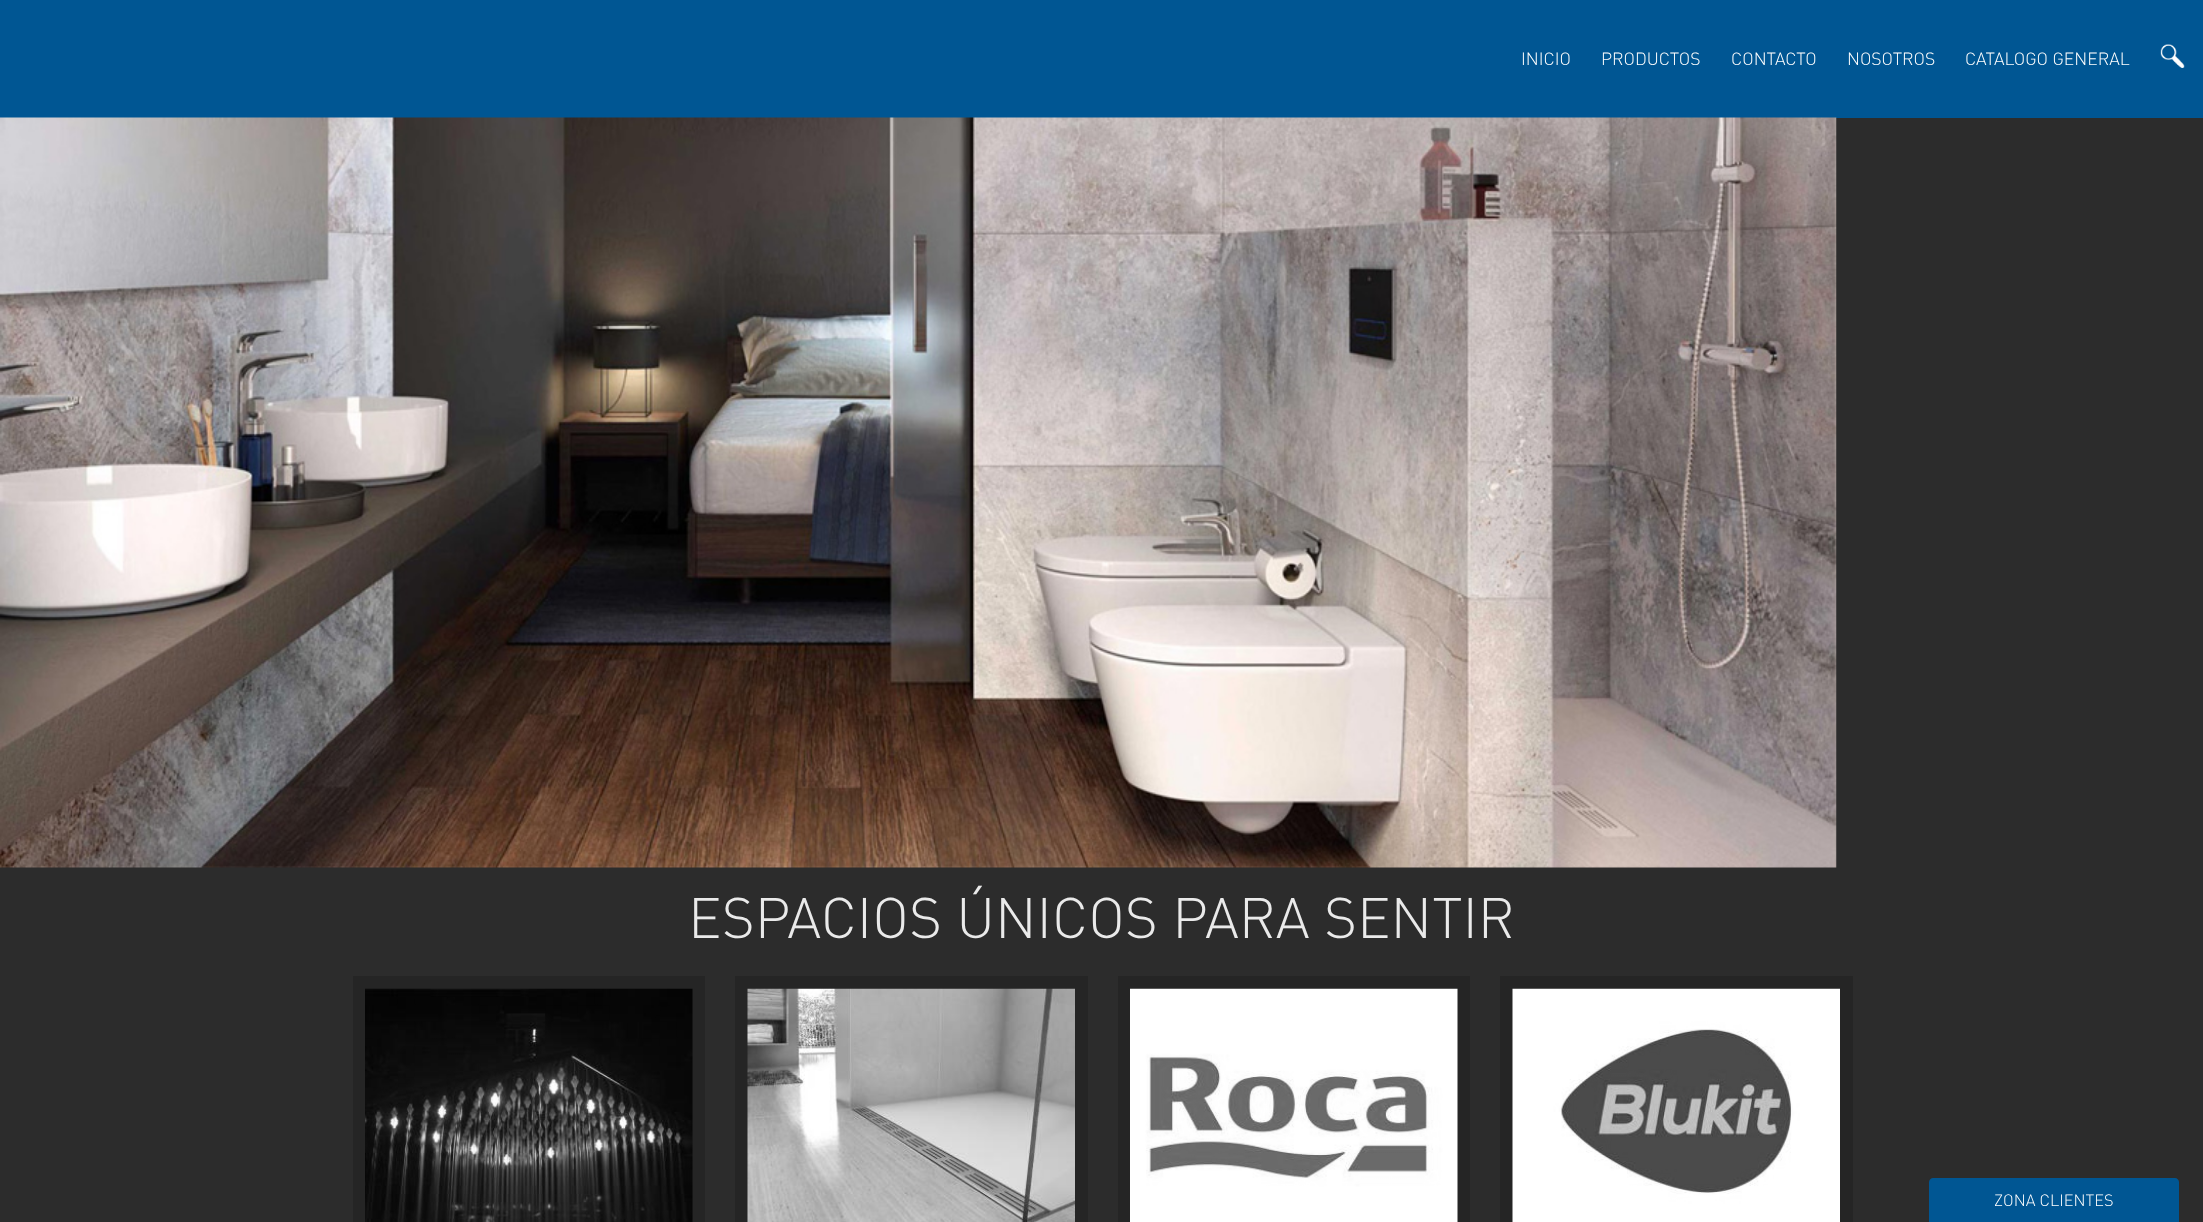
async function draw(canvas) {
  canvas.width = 2203;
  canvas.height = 1222;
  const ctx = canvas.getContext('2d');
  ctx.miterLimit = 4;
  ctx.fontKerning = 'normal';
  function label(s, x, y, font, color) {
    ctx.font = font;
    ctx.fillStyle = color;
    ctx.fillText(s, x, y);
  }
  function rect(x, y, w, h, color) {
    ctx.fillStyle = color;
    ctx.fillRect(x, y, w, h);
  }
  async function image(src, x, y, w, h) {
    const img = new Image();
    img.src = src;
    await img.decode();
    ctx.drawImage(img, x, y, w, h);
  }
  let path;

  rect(0, 0, 2203, 1222, '#2c2c2c');
  rect(0, 0, 2203, 118, '#005693');
  label('INICIO', 1521, 65, '300 17.5px DIN', '#fff');
  label('PRODUCTOS', 1601, 65, '300 17.5px DIN', '#fff');
  label('CONTACTO', 1731, 65, '300 17.5px DIN', '#fff');
  label('NOSOTROS', 1847, 65, '300 17.5px DIN', '#fff');
  label('CATALOGO GENERAL', 1965, 65, '300 17.5px DIN', '#fff');
  await image('assets/img1.png', 2160, 44, 25, 24);
  await image('assets/img2.png', 0, 117, 1837, 751);
  label('ESPACIOS ÚNICOS PARA SENTIR', 688, 938, '300 56.25px DIN', '#eaeaea');
  rect(353, 976, 352, 246, '#252525');
  await image('assets/img3.png', 365, 988, 328, 234);
  rect(735, 976, 353, 246, '#252525');
  await image('assets/img4.png', 747, 988, 328, 234);
  rect(1118, 976, 352, 246, '#252525');
  await image('assets/img5.png', 1130, 988, 328, 234);
  rect(1500, 976, 353, 246, '#252525');
  await image('assets/img6.png', 1512, 988, 328, 234);
  ctx.fillStyle = '#005693';
  path = new Path2D('M1933 1178H2175C2177 1178 2179 1180 2179 1182V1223H1929V1182C1929 1180 1931 1178 1933 1178Z');
  ctx.fill(path);
  label('ZONA CLIENTES', 1994, 1206, '300 16.25px DIN', '#fff');
}

draw(document.querySelector('canvas'));
